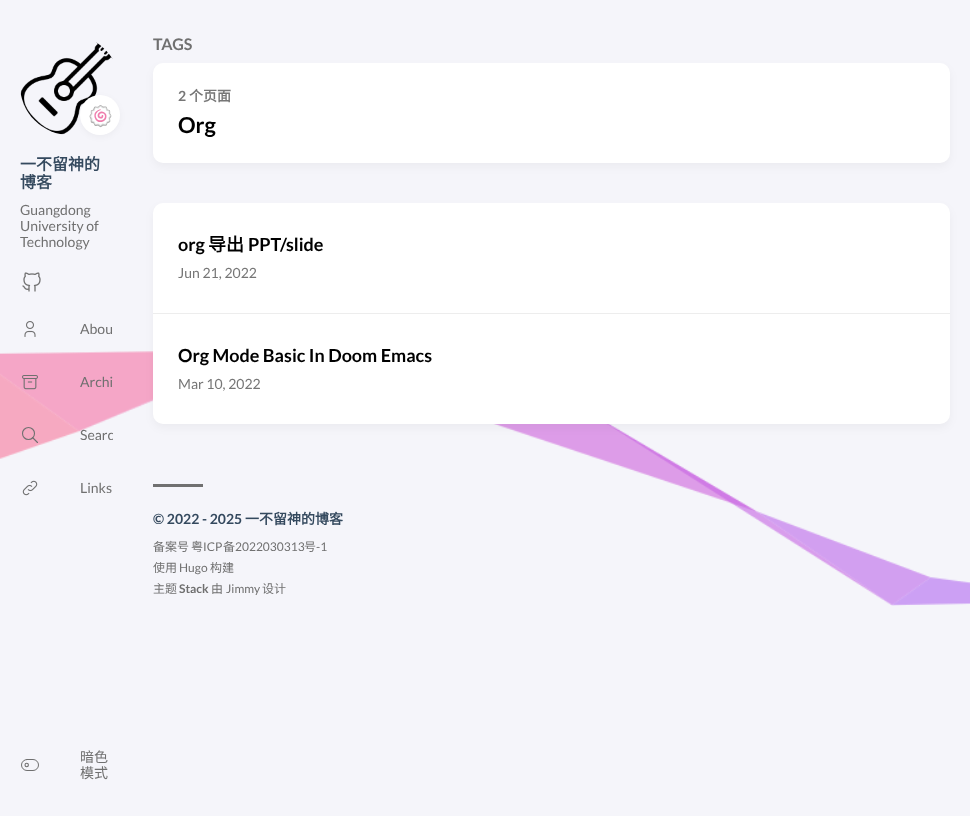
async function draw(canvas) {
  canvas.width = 970;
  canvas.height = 816;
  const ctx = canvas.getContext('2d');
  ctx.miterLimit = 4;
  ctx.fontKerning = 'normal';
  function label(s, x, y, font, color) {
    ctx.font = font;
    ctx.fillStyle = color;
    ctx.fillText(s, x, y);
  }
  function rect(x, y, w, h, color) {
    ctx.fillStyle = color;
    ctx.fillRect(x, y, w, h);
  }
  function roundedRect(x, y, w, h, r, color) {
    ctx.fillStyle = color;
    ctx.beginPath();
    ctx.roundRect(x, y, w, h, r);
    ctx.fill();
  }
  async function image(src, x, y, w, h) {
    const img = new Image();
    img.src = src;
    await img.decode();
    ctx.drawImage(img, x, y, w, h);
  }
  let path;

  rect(0, 0, 970, 816, '#f5f5fa');
  await image('assets/img1.png', 20, 42, 93, 93);
  ctx.fillStyle = '#0000000a';
  ctx.filter = 'blur(3px)';
  ctx.beginPath();
  ctx.roundRect(80, 97, 40, 40, 20);
  ctx.fill();
  ctx.filter = 'none';
  ctx.fillStyle = '#fff';
  ctx.beginPath();
  ctx.arc(100, 115, 20, 0, 2 * Math.PI);
  ctx.fill();
  label('🍥', 88, 123, '20px Noto Color Emoji', '#000');
  label('一不留神的', 20, 170, 'bold 16px Noto Sans CJK SC', '#34495e');
  label('博客', 20, 188, 'bold 16px Noto Sans CJK SC', '#34495e');
  label('Guangdong', 20, 215, '14px Lato', '#707070');
  label('University of', 20, 231, '14px Lato', '#707070');
  label('Technology', 20, 247, '14px Lato', '#707070');
  await image('assets/img2.png', 22, 272, 19, 20);
  await image('assets/img3.png', 24, 321, 12, 16);
  label('Abou', 80, 334, '14px Lato', '#707070');
  await image('assets/img6.png', 0, 351, 970, 255);
  await image('assets/img4.png', 22, 375, 16, 15);
  label('Archi', 80, 387, '14px Lato', '#707070');
  ctx.beginPath();
  ctx.arc(28.5, 433.5, 6, 0, 2 * Math.PI);
  ctx.strokeStyle = '#707070';
  ctx.lineWidth = 1.1;
  ctx.stroke();
  path = new Path2D('M37.5 442.5L32.5 437.5');
  ctx.lineCap = 'round';
  ctx.lineJoin = 'round';
  ctx.stroke(path);
  ctx.save();
  ctx.beginPath();
  ctx.rect(20, 317, 93, 464);
  ctx.clip();
  label('Searc', 80, 440, '14px Lato', '#707070');
  ctx.restore();
  await image('assets/img5.png', 22, 480, 16, 16);
  label('Links', 80, 493, '14px Lato', '#707070');
  ctx.beginPath();
  ctx.arc(26.7, 765, 1.7, 0, 2 * Math.PI);
  ctx.stroke();
  ctx.beginPath();
  ctx.roundRect(21.5, 759.5, 17, 11, 5.5);
  ctx.lineWidth = 1;
  ctx.lineJoin = 'miter';
  ctx.stroke();
  label('暗色', 80, 762, '14px Noto Sans CJK SC', '#707070');
  label('模式', 80, 778, '14px Noto Sans CJK SC', '#707070');
  label('TAGS', 153, 50, 'bold 16px Lato', '#707070');
  ctx.fillStyle = '#0000000a';
  ctx.filter = 'blur(4px)';
  ctx.beginPath();
  ctx.roundRect(153, 67, 797, 100, 10);
  ctx.fill();
  ctx.filter = 'none';
  roundedRect(153, 63, 797, 100, 10, '#fff');
  label('2', 178, 101, 'bold 14px Lato', '#767676');
  label('个页面', 189, 101, 'bold 14px Noto Sans CJK SC', '#767676');
  label('Org', 178, 133, 'bold 22px Lato', '#000');
  ctx.fillStyle = '#0000000a';
  ctx.filter = 'blur(4px)';
  ctx.beginPath();
  ctx.roundRect(153, 207, 797, 221, 10);
  ctx.fill();
  ctx.filter = 'none';
  roundedRect(153, 203, 797, 221, 10, '#fff');
  rect(153, 313, 797, 1, '#ededed');
  label('org', 178, 251, 'bold 18px Lato', '#000');
  label('导出', 208, 251, 'bold 18px Noto Sans CJK SC', '#000');
  label('PPT/slide', 248, 251, 'bold 18px Lato', '#000');
  label('Jun 21, 2022', 178, 278, '14px Lato', '#767676');
  label('Org Mode Basic In Doom Emacs', 178, 362, 'bold 18px Lato', '#000');
  label('Mar 10, 2022', 178, 389, '14px Lato', '#767676');
  rect(153, 484, 50, 3, '#707070');
  label('© 2022 - 2025', 153, 524, 'bold 14px Lato', '#34495e');
  label('一不留神的博客', 245, 524, 'bold 14px Noto Sans CJK SC', '#34495e');
  label('备案号', 153, 551, '12px Noto Sans CJK SC', '#707070');
  label('粤', 191, 551, '12px Noto Sans CJK SC', '#707070');
  label('ICP', 203, 551, '12px Lato', '#707070');
  label('备', 223, 551, '12px Noto Sans CJK SC', '#707070');
  label('2022030313', 235, 551, '12px Lato', '#707070');
  label('号', 304, 551, '12px Noto Sans CJK SC', '#707070');
  label('-1', 316, 551, '12px Lato', '#707070');
  label('使用', 153, 572, '12px Noto Sans CJK SC', '#707070');
  label('Hugo', 179, 572, '12px Lato', '#707070');
  label('构建', 210, 572, '12px Noto Sans CJK SC', '#707070');
  label('主题', 153, 593, '12px Noto Sans CJK SC', '#707070');
  label('Stack', 179, 593, 'bold 12px Lato', '#707070');
  label('由', 211, 593, '12px Noto Sans CJK SC', '#707070');
  label('Jimmy', 226, 593, '12px Lato', '#707070');
  label('设计', 262, 593, '12px Noto Sans CJK SC', '#707070');
}

draw(document.querySelector('canvas'));
